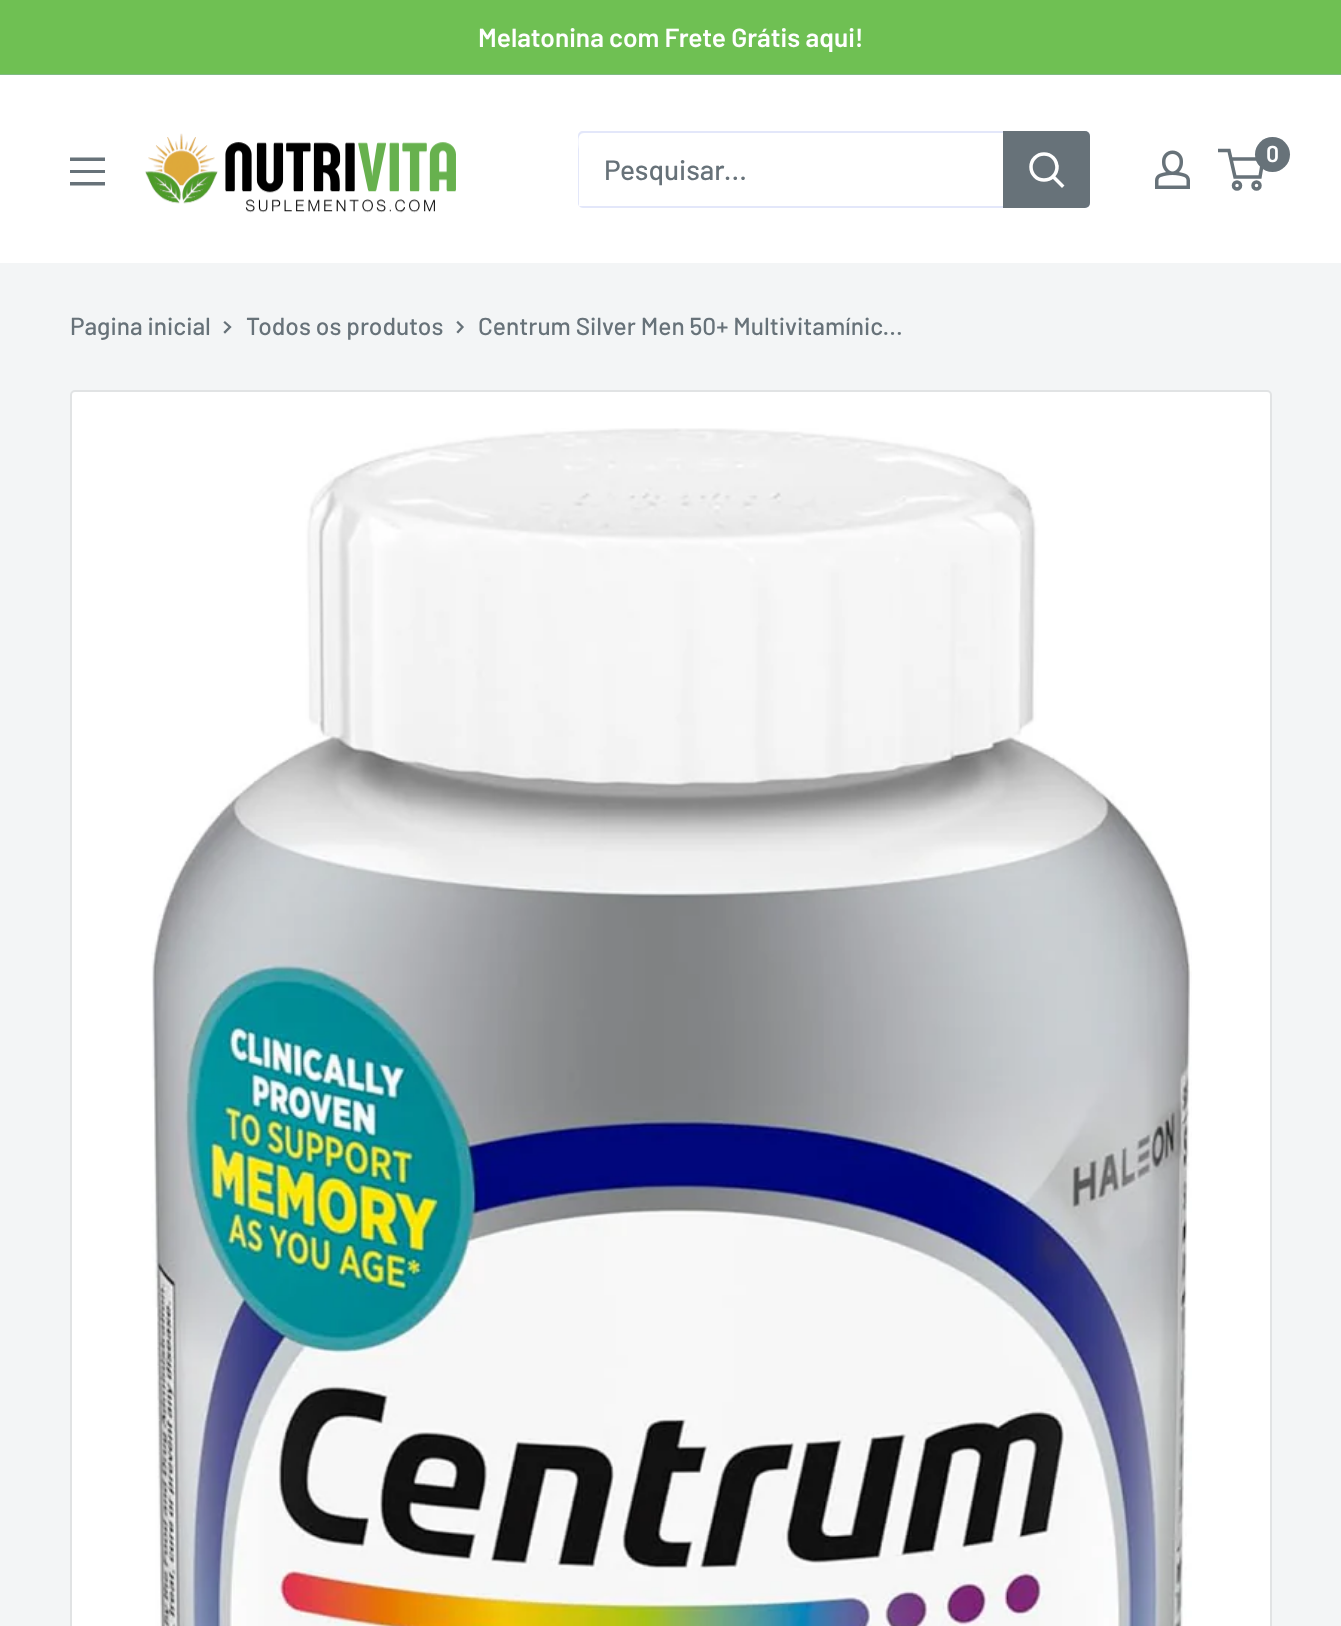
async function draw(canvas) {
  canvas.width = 1341;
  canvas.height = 1626;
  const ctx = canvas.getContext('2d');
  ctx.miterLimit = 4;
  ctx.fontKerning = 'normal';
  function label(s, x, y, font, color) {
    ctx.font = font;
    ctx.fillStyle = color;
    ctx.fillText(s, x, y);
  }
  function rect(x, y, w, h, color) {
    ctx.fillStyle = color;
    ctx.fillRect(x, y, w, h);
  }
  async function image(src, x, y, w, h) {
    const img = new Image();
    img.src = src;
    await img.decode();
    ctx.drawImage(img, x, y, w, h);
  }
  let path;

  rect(0, 0, 1341, 1626, '#f3f5f6');
  rect(0, 0, 1341, 74, '#6fc053');
  rect(0, 74, 1341, 1, '#7fbb82');
  label('Melatonina com Frete Grátis aqui!', 478, 47, '600 26.25px Barlow', '#fff');
  rect(0, 75, 1341, 188, '#fff');
  await image('assets/img1.png', 145, 133, 311, 80);
  await image('assets/img2.png', 1155, 150, 35, 39);
  ctx.beginPath();
  ctx.arc(1237, 185.5, 3.5, 0, 2 * Math.PI);
  ctx.strokeStyle = '#677279';
  ctx.lineWidth = 3.5;
  ctx.stroke();
  ctx.beginPath();
  ctx.arc(1256.5, 185.5, 3.5, 0, 2 * Math.PI);
  ctx.stroke();
  path = new Path2D('M1231 159H1263L1260 177H1235L1229 150.5H1218');
  ctx.stroke(path);
  ctx.fillStyle = '#677279';
  ctx.beginPath();
  ctx.arc(1272.5, 154.5, 17.5, 0, 2 * Math.PI);
  ctx.fill();
  label('0', 1266, 162, '600 23px Barlow', '#fff');
  ctx.fillStyle = '#677279';
  path = new Path2D('M70 182H105V185.5H70ZM70 157.5H105V161H70ZM70 170H105V173H70Z');
  ctx.fill(path, 'evenodd');
  ctx.fillStyle = '#e3e7fa';
  path = new Path2D('M579 206C580 207 581 208 583 208H1085C1088 208 1090 206 1090 203V136C1090 134 1089 132 1086 131C1087 132 1088 133 1088 135V201C1088 204 1086 206 1083 206H581Z');
  ctx.fill(path);
  ctx.fillStyle = '#a3afef4d';
  path = new Path2D('M584 133H1087H1089C1088 132 1087 131 1085 131H583C580 131 578 133 578 136V203C578 204 578 205 579 206V149C579 146 576 133 584 133Z');
  ctx.fill(path);
  label('Pesquisar...', 604, 180, '500 28px Barlow', '#677279');
  ctx.beginPath();
  ctx.roundRect(1003, 131, 87, 77, [0, 5, 5, 0]);
  ctx.fill();
  path = new Path2D('M1062 185.5L1053.5 177');
  ctx.strokeStyle = '#fff';
  ctx.lineCap = 'square';
  ctx.stroke(path);
  ctx.beginPath();
  ctx.arc(1044, 167, 13, 0, 2 * Math.PI);
  ctx.stroke();
  label('Pagina inicial', 70, 335, '500 24.5px Barlow', '#677279');
  path = new Path2D('M225 322.5L230 327L225 332');
  ctx.strokeStyle = '#677279';
  ctx.lineWidth = 2.3;
  ctx.stroke(path);
  label('Todos os produtos', 246, 335, '500 24.5px Barlow', '#677279');
  path = new Path2D('M458 322.5L462.5 327L458 332');
  ctx.stroke(path);
  label('Centrum Silver Men 50+ Multivitamínic...', 478, 335, '500 24.5px Barlow', '#677279');
  ctx.fillStyle = '#fff';
  ctx.beginPath();
  ctx.roundRect(71, 391, 1200, 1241, 4);
  ctx.fill();
  ctx.strokeStyle = '#e1e3e4';
  ctx.lineWidth = 2;
  ctx.stroke();
  await image('assets/img3.png', 151, 428, 1041, 1198);
}

draw(document.querySelector('canvas'));
